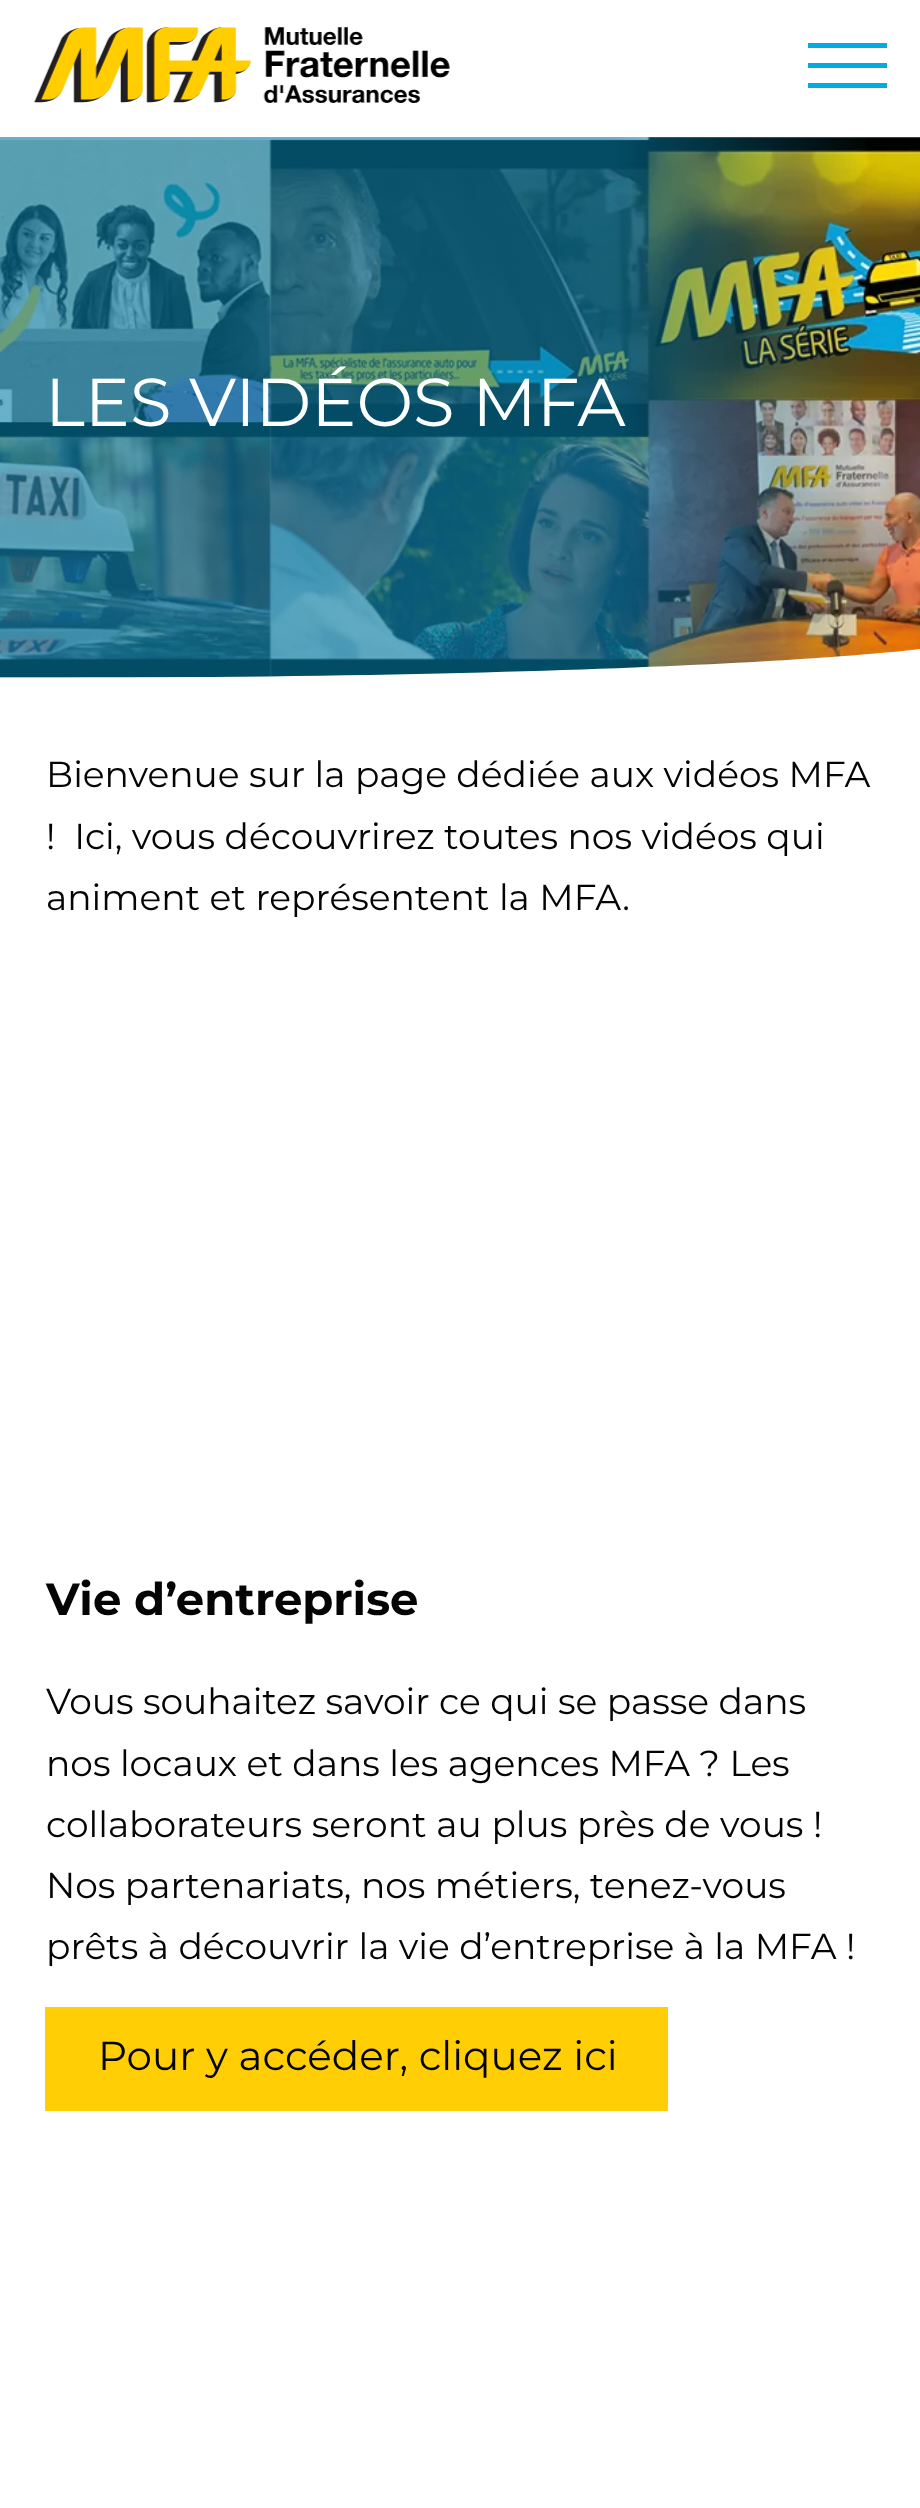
async function draw(canvas) {
  canvas.width = 920;
  canvas.height = 2508;
  const ctx = canvas.getContext('2d');
  ctx.miterLimit = 4;
  ctx.fontKerning = 'normal';
  function label(s, x, y, font, color) {
    ctx.font = font;
    ctx.fillStyle = color;
    ctx.fillText(s, x, y);
  }
  function rect(x, y, w, h, color) {
    ctx.fillStyle = color;
    ctx.fillRect(x, y, w, h);
  }
  async function image(src, x, y, w, h) {
    const img = new Image();
    img.src = src;
    await img.decode();
    ctx.drawImage(img, x, y, w, h);
  }
  let gradient, path;

  rect(0, 0, 920, 2508, '#fff');
  await image('assets/img1.png', 33, 27, 417, 76);
  rect(808, 43, 79, 5, '#06aae3');
  rect(808, 63, 79, 5, '#06aae3');
  rect(808, 83, 79, 5, '#06aae3');
  await image('assets/img2.png', 0, 137, 920, 541);
  gradient = ctx.createLinearGradient(0, 407, 875, 407);
  gradient.addColorStop(0.7, '#047da799');
  gradient.addColorStop(1, '#047da700');
  ctx.fillStyle = gradient;
  ctx.fillRect(0, 137, 866, 540);
  label('LES VIDÉOS MFA', 45, 426, '67.5px Montserrat', '#fdfefe');
  ctx.save();
  ctx.beginPath();
  ctx.rect(0, 648, 920, 34);
  ctx.clip();
  ctx.fillStyle = '#fff';
  path = new Path2D('M920 649C920 649 703 678 0 678V698H920Z');
  ctx.fill(path, 'evenodd');
  ctx.restore();
  label('Bienvenue sur la page dédiée aux vidéos MFA', 46, 787, '36px Montserrat', '#040404');
  label('!  Ici, vous découvrirez toutes nos vidéos qui', 46, 849, '36px Montserrat', '#040404');
  label('animent et représentent la MFA.', 46, 910, '36px Montserrat', '#040404');
  label('Vie d’entreprise', 46, 1615, 'bold 45px Montserrat', '#040404');
  label('Vous souhaitez savoir ce qui se passe dans', 46, 1714, '36px Montserrat', '#040404');
  label('nos locaux et dans les agences MFA ? Les', 46, 1776, '36px Montserrat', '#040404');
  ctx.wordSpacing = '0.25px';
  label('collaborateurs seront au plus près de vous !', 46, 1837, '36px Montserrat', '#040404');
  ctx.wordSpacing = '0px';
  label('Nos partenariats, nos métiers, tenez-vous', 46, 1898, '36px Montserrat', '#040404');
  label('prêts à découvrir la vie d’entreprise à la MFA !', 46, 1959, '36px Montserrat', '#040404');
  rect(45, 2007, 623, 104, '#ffce04');
  label('Pour y accéder, cliquez ici', 98, 2070, '40.5px Montserrat', '#040404');
}

draw(document.querySelector('canvas'));
